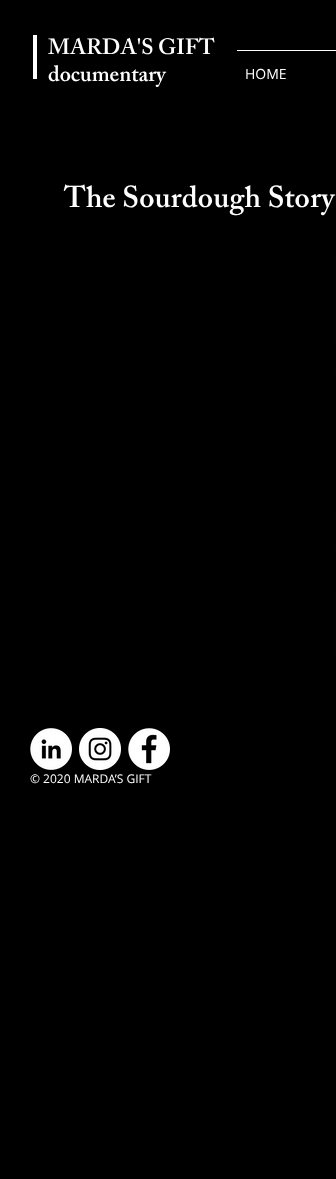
async function draw(canvas) {
  canvas.width = 336;
  canvas.height = 1179;
  const ctx = canvas.getContext('2d');
  ctx.miterLimit = 4;
  ctx.fontKerning = 'normal';
  function label(s, x, y, font, color) {
    ctx.font = font;
    ctx.fillStyle = color;
    ctx.fillText(s, x, y);
  }
  function rect(x, y, w, h, color) {
    ctx.fillStyle = color;
    ctx.fillRect(x, y, w, h);
  }
  async function image(src, x, y, w, h) {
    const img = new Image();
    img.src = src;
    await img.decode();
    ctx.drawImage(img, x, y, w, h);
  }

  rect(0, 0, 336, 1179, '#000');
  rect(33, 35, 4, 44, '#fff');
  label('MARDA\'S GIFT', 48, 54, '600 22px "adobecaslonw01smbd"', '#fff');
  label('documentary', 48, 81, '600 22px "adobecaslonw01smbd"', '#fff');
  rect(237, 50, 99, 1, '#fff');
  label('HOME', 245, 79, '14px Open Sans', '#fff');
  ctx.letterSpacing = '0.25px';
  label('The Sourdough Story', 64, 207, '600 30px "adobecaslonw01smbd"', '#fff');
  await image('assets/img1.png', 334, 255, 2, 404);
  await image('assets/img2.png', 30, 728, 42, 42);
  await image('assets/img3.png', 79, 728, 42, 42);
  await image('assets/img4.png', 128, 728, 42, 42);
  ctx.letterSpacing = '0px';
  label('© 2020 MARDA’S GIFT', 30, 783, '12px Open Sans', '#fff');
}

draw(document.querySelector('canvas'));
